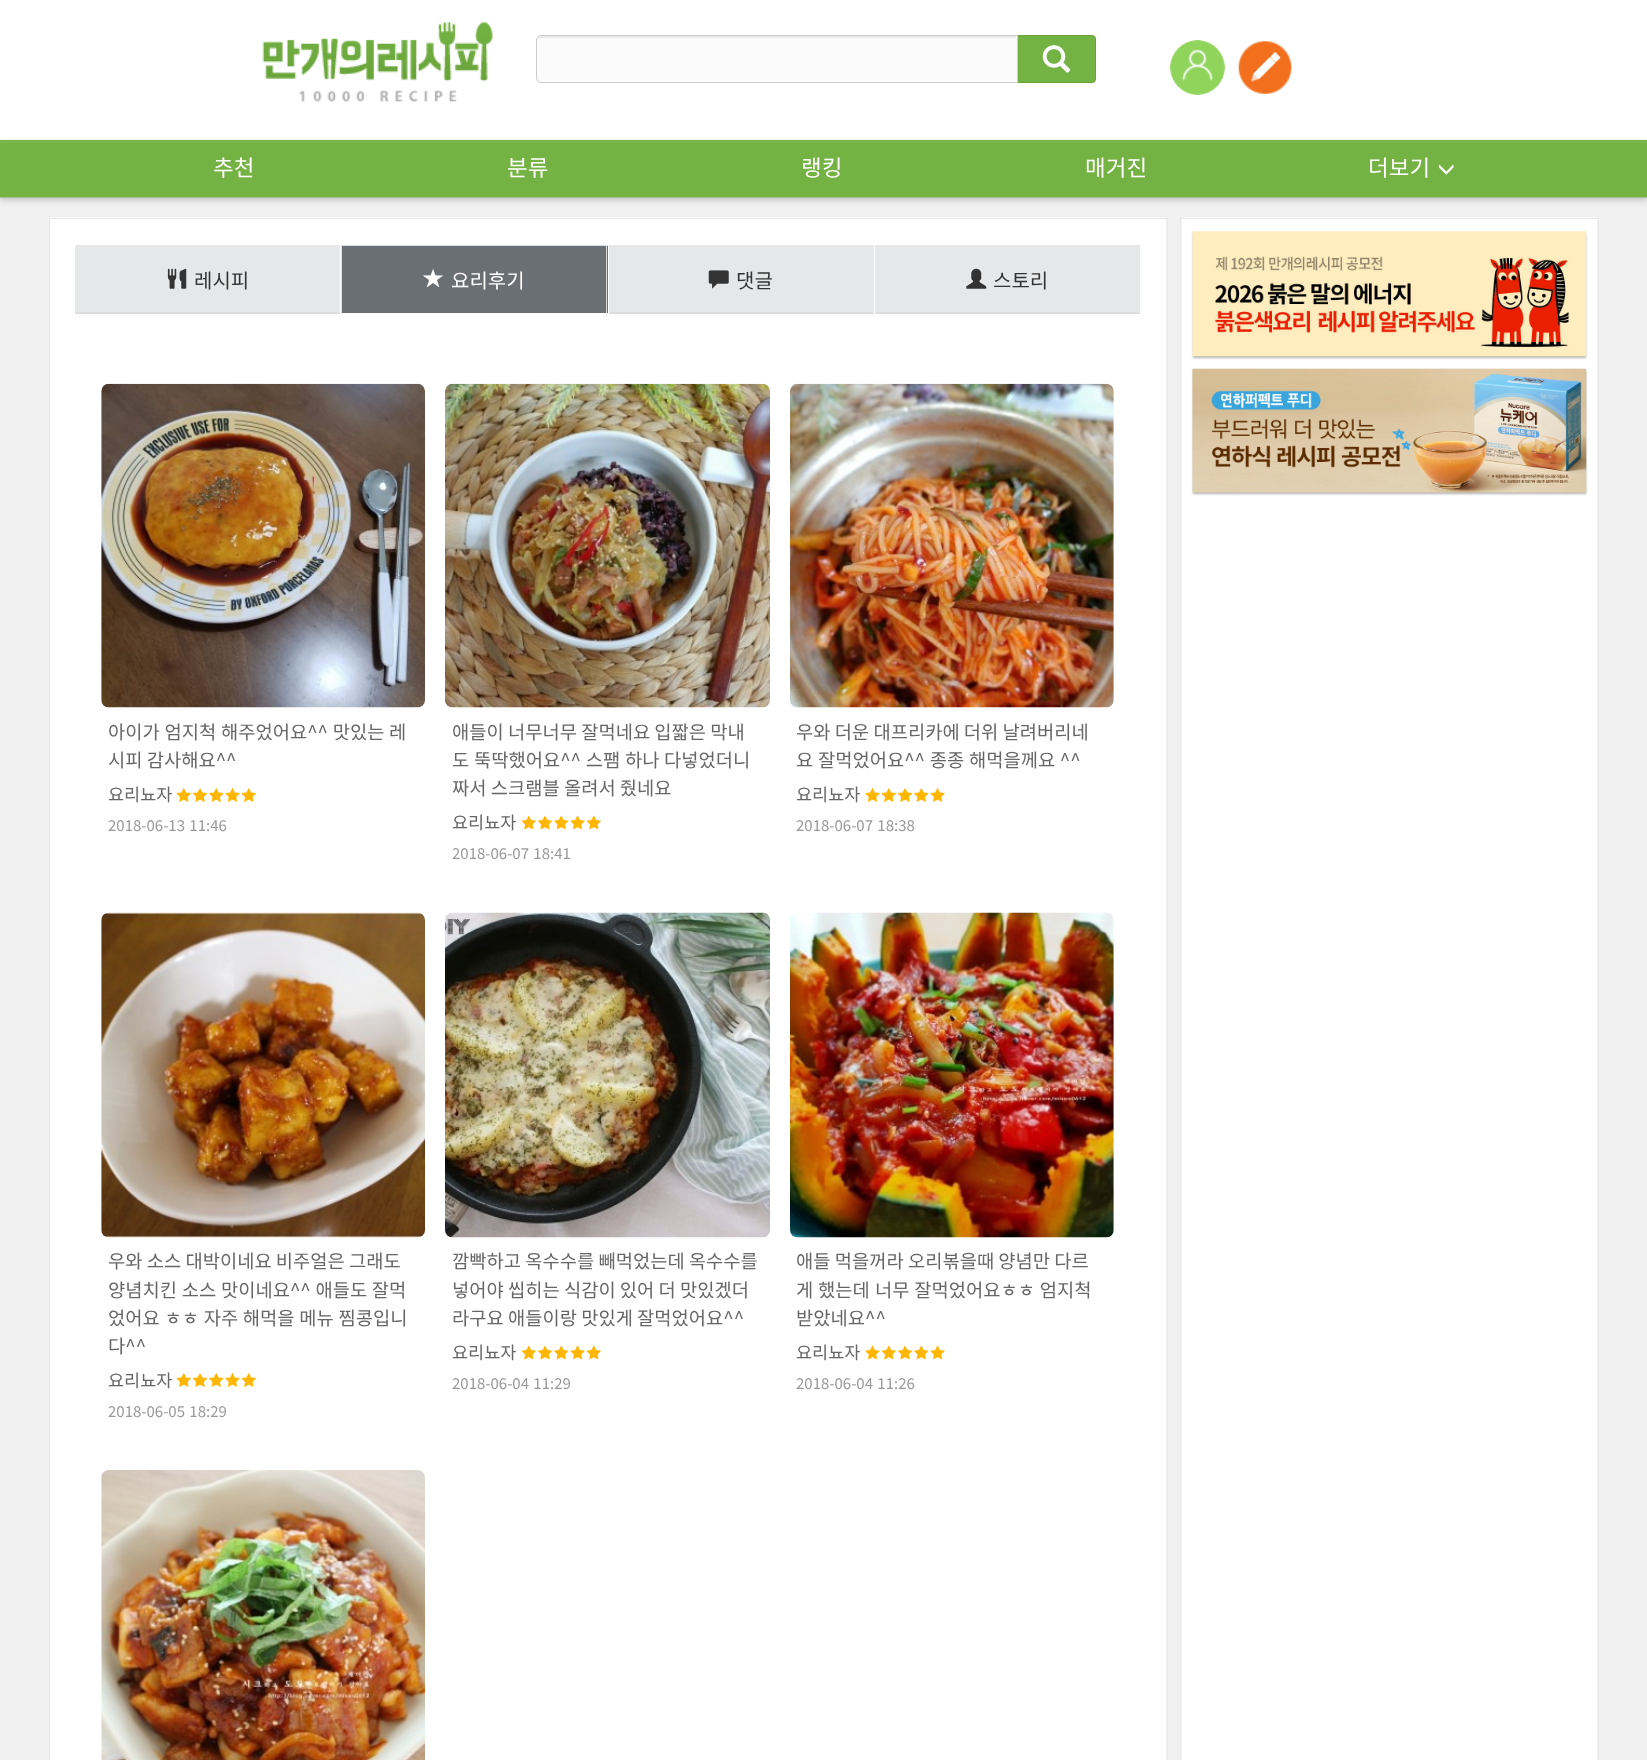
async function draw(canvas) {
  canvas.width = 1647;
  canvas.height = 1760;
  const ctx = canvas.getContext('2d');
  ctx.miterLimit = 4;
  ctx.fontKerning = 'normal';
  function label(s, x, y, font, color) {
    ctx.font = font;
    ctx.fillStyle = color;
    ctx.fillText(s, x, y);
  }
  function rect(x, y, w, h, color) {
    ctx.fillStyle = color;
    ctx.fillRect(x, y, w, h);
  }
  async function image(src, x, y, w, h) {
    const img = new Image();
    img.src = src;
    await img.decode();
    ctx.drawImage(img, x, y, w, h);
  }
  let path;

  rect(0, 0, 1647, 1760, '#f1f1f2');
  rect(0, 0, 1647, 140, '#fff');
  await image('assets/img1.png', 262, 21, 231, 81);
  ctx.fillStyle = '#74b243';
  ctx.beginPath();
  ctx.roundRect(1016.5, 35.5, 79, 47, [0, 3.5, 3.5, 0]);
  ctx.fill();
  ctx.strokeStyle = '#68a13a';
  ctx.stroke();
  ctx.fillStyle = '#fbfbfb';
  ctx.beginPath();
  ctx.roundRect(536, 35, 482, 48, [5, 0, 0, 5]);
  ctx.fill();
  ctx.fillStyle = '#e8e8e8';
  path = new Path2D('M541 38H1016V36H542C539 36 538 38 538 41C538 39 539 38 541 38Z');
  ctx.fill(path);
  ctx.beginPath();
  ctx.roundRect(536.5, 35.5, 481, 47, [4.5, 0, 0, 4.5]);
  ctx.strokeStyle = '#ccc';
  ctx.stroke();
  await image('assets/img2.png', 1042, 45, 29, 28);
  await image('assets/img3.png', 1170, 40, 55, 55);
  await image('assets/img4.png', 1238, 41, 54, 53);
  ctx.fillStyle = '#00000033';
  ctx.filter = 'blur(3px)';
  ctx.beginPath();
  ctx.rect(0, 143, 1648, 57);
  ctx.fill();
  ctx.filter = 'none';
  await image('assets/img5.png', 0, 140, 1647, 58);
  label('추천', 213, 176, '22.5px Noto Sans KR', '#fff');
  label('분류', 507, 176, '22.5px Noto Sans KR', '#fff');
  label('랭킹', 801, 176, '22.5px Noto Sans KR', '#fff');
  label('매거진', 1085, 176, '22.5px Noto Sans KR', '#fff');
  label('더보기', 1368, 176, '22.5px Noto Sans KR', '#fff');
  await image('assets/img6.png', 1439, 164, 15, 11);
  await image('assets/img7.png', 49, 217, 1550, 1543);
  rect(49, 218, 1119, 1, '#e6e7e8');
  rect(75, 245, 265, 69, '#e6e7e8');
  ctx.fillStyle = '#ddd';
  path = new Path2D('M340 314H75L76 312H339Z');
  ctx.fill(path);
  await image('assets/img8.png', 167, 268, 20, 21);
  label('레시피', 194, 288, '20px Noto Sans KR', '#333');
  rect(342, 246, 266, 67, '#6a6f74');
  rect(341, 245, 267, 1, '#ddd');
  rect(606, 245, 1, 69, '#ddd');
  rect(606, 313, 2, 1, '#fff');
  rect(341, 245, 1, 69, '#ddd');
  await image('assets/img9.png', 423, 269, 20, 19);
  label('요리후기', 451, 288, '20px Noto Sans KR', '#fff');
  rect(609, 245, 265, 69, '#e6e7e8');
  ctx.fillStyle = '#ddd';
  path = new Path2D('M874 314H609L610 312H872Z');
  ctx.fill(path);
  await image('assets/img10.png', 708, 270, 21, 19);
  label('댓글', 736, 288, '20px Noto Sans KR', '#333');
  rect(875, 245, 265, 69, '#e6e7e8');
  ctx.fillStyle = '#ddd';
  path = new Path2D('M1140 314H875L876 312H1139Z');
  ctx.fill(path);
  await image('assets/img11.png', 966, 268, 21, 21);
  label('스토리', 993, 288, '20px Noto Sans KR', '#333');
  await image('assets/img12.png', 101, 383, 324, 325);
  ctx.wordSpacing = '0.5px';
  label('아이가 엄지척 해주었어요^^ 맛있는 레', 108, 739, '18.75px Noto Sans KR', '#666');
  ctx.wordSpacing = '0px';
  label('시피 감사해요^^', 108, 767, '18.75px Noto Sans KR', '#666');
  label('요리뇨자', 108, 801, '17.5px Noto Sans KR', '#666');
  await image('assets/img13.png', 176, 788, 16, 14);
  await image('assets/img14.png', 192, 788, 16, 14);
  await image('assets/img15.png', 208, 788, 16, 14);
  await image('assets/img16.png', 225, 788, 15, 14);
  await image('assets/img13.png', 241, 788, 16, 14);
  ctx.wordSpacing = '1px';
  label('2018-06-13 11:46', 108, 831, '15px Noto Sans KR', '#999');
  await image('assets/img17.png', 445, 383, 325, 325);
  ctx.wordSpacing = '0px';
  label('애들이 너무너무 잘먹네요 입짧은 막내', 452, 739, '18.75px Noto Sans KR', '#666');
  ctx.wordSpacing = '0.5px';
  label('도 뚝딱했어요^^ 스팸 하나 다넣었더니', 452, 767, '18.75px Noto Sans KR', '#666');
  ctx.wordSpacing = '0px';
  label('짜서 스크램블 올려서 줬네요', 452, 795, '18.75px Noto Sans KR', '#666');
  label('요리뇨자', 452, 829, '17.5px Noto Sans KR', '#666');
  await image('assets/img18.png', 521, 815, 16, 15);
  await image('assets/img19.png', 537, 815, 16, 15);
  await image('assets/img20.png', 553, 815, 16, 15);
  await image('assets/img21.png', 570, 815, 15, 15);
  await image('assets/img18.png', 586, 815, 16, 15);
  ctx.wordSpacing = '1px';
  label('2018-06-07 18:41', 452, 859, '15px Noto Sans KR', '#999');
  await image('assets/img22.png', 790, 383, 324, 325);
  ctx.wordSpacing = '0px';
  label('우와 더운 대프리카에 더위 날려버리네', 796, 739, '18.75px Noto Sans KR', '#666');
  ctx.wordSpacing = '0.5px';
  label('요 잘먹었어요^^ 종종 해먹을께요 ^^', 796, 767, '18.75px Noto Sans KR', '#666');
  ctx.wordSpacing = '0px';
  label('요리뇨자', 796, 801, '17.5px Noto Sans KR', '#666');
  await image('assets/img16.png', 865, 788, 15, 14);
  await image('assets/img13.png', 881, 788, 16, 14);
  await image('assets/img14.png', 897, 788, 16, 14);
  await image('assets/img23.png', 913, 788, 16, 14);
  await image('assets/img16.png', 930, 788, 15, 14);
  ctx.wordSpacing = '1px';
  label('2018-06-07 18:38', 796, 831, '15px Noto Sans KR', '#999');
  await image('assets/img24.png', 101, 912, 324, 326);
  ctx.wordSpacing = '0px';
  label('우와 소스 대박이네요 비주얼은 그래도', 108, 1268, '18.75px Noto Sans KR', '#666');
  ctx.wordSpacing = '0.5px';
  label('양념치킨 소스 맛이네요^^ 애들도 잘먹', 108, 1297, '18.75px Noto Sans KR', '#666');
  label('었어요 ㅎㅎ 자주 해먹을 메뉴 찜콩입니', 108, 1325, '18.75px Noto Sans KR', '#666');
  ctx.wordSpacing = '0px';
  label('다^^', 108, 1353, '18.75px Noto Sans KR', '#666');
  label('요리뇨자', 108, 1387, '17.5px Noto Sans KR', '#666');
  await image('assets/img13.png', 176, 1373, 16, 14);
  await image('assets/img14.png', 192, 1373, 16, 14);
  await image('assets/img15.png', 208, 1373, 16, 14);
  await image('assets/img16.png', 225, 1373, 15, 14);
  await image('assets/img13.png', 241, 1373, 16, 14);
  ctx.wordSpacing = '1px';
  label('2018-06-05 18:29', 108, 1417, '15px Noto Sans KR', '#999');
  await image('assets/img25.png', 445, 912, 325, 326);
  ctx.wordSpacing = '0px';
  label('깜빡하고 옥수수를 빼먹었는데 옥수수를', 452, 1268, '18.75px Noto Sans KR', '#666');
  label('넣어야 씹히는 식감이 있어 더 맛있겠더', 452, 1297, '18.75px Noto Sans KR', '#666');
  label('라구요 애들이랑 맛있게 잘먹었어요^^', 452, 1325, '18.75px Noto Sans KR', '#666');
  label('요리뇨자', 452, 1359, '17.5px Noto Sans KR', '#666');
  await image('assets/img18.png', 521, 1345, 16, 15);
  await image('assets/img19.png', 537, 1345, 16, 15);
  await image('assets/img20.png', 553, 1345, 16, 15);
  await image('assets/img21.png', 570, 1345, 15, 15);
  await image('assets/img18.png', 586, 1345, 16, 15);
  ctx.wordSpacing = '1px';
  label('2018-06-04 11:29', 452, 1389, '15px Noto Sans KR', '#999');
  await image('assets/img26.png', 790, 912, 324, 326);
  ctx.wordSpacing = '0px';
  label('애들 먹을꺼라 오리볶을때 양념만 다르', 796, 1268, '18.75px Noto Sans KR', '#666');
  ctx.wordSpacing = '0.5px';
  label('게 했는데', 796, 1297, '18.75px Noto Sans KR', '#666');
  label('너무 잘먹었어요ㅎㅎ 엄지척', 875, 1297, '18.75px Noto Sans KR', '#666');
  ctx.wordSpacing = '0px';
  label('받았네요^^', 796, 1325, '18.75px Noto Sans KR', '#666');
  label('요리뇨자', 796, 1359, '17.5px Noto Sans KR', '#666');
  await image('assets/img27.png', 865, 1345, 15, 15);
  await image('assets/img18.png', 881, 1345, 16, 15);
  await image('assets/img28.png', 897, 1345, 16, 15);
  await image('assets/img20.png', 913, 1345, 16, 15);
  await image('assets/img27.png', 930, 1345, 15, 15);
  ctx.wordSpacing = '1px';
  label('2018-06-04 11:26', 796, 1389, '15px Noto Sans KR', '#999');
  await image('assets/img29.png', 101, 1470, 324, 290);
  rect(1180, 218, 419, 1, '#e6e7e8');
  ctx.fillStyle = '#0000004d';
  ctx.filter = 'blur(1px)';
  ctx.beginPath();
  ctx.rect(1193, 233, 393, 125);
  ctx.fill();
  ctx.filter = 'none';
  await image('assets/img30.png', 1192, 231, 395, 126);
  ctx.filter = 'blur(1px)';
  ctx.beginPath();
  ctx.rect(1193, 370, 393, 124);
  ctx.fill();
  ctx.filter = 'none';
  await image('assets/img31.png', 1192, 368, 395, 125);
}

draw(document.querySelector('canvas'));
